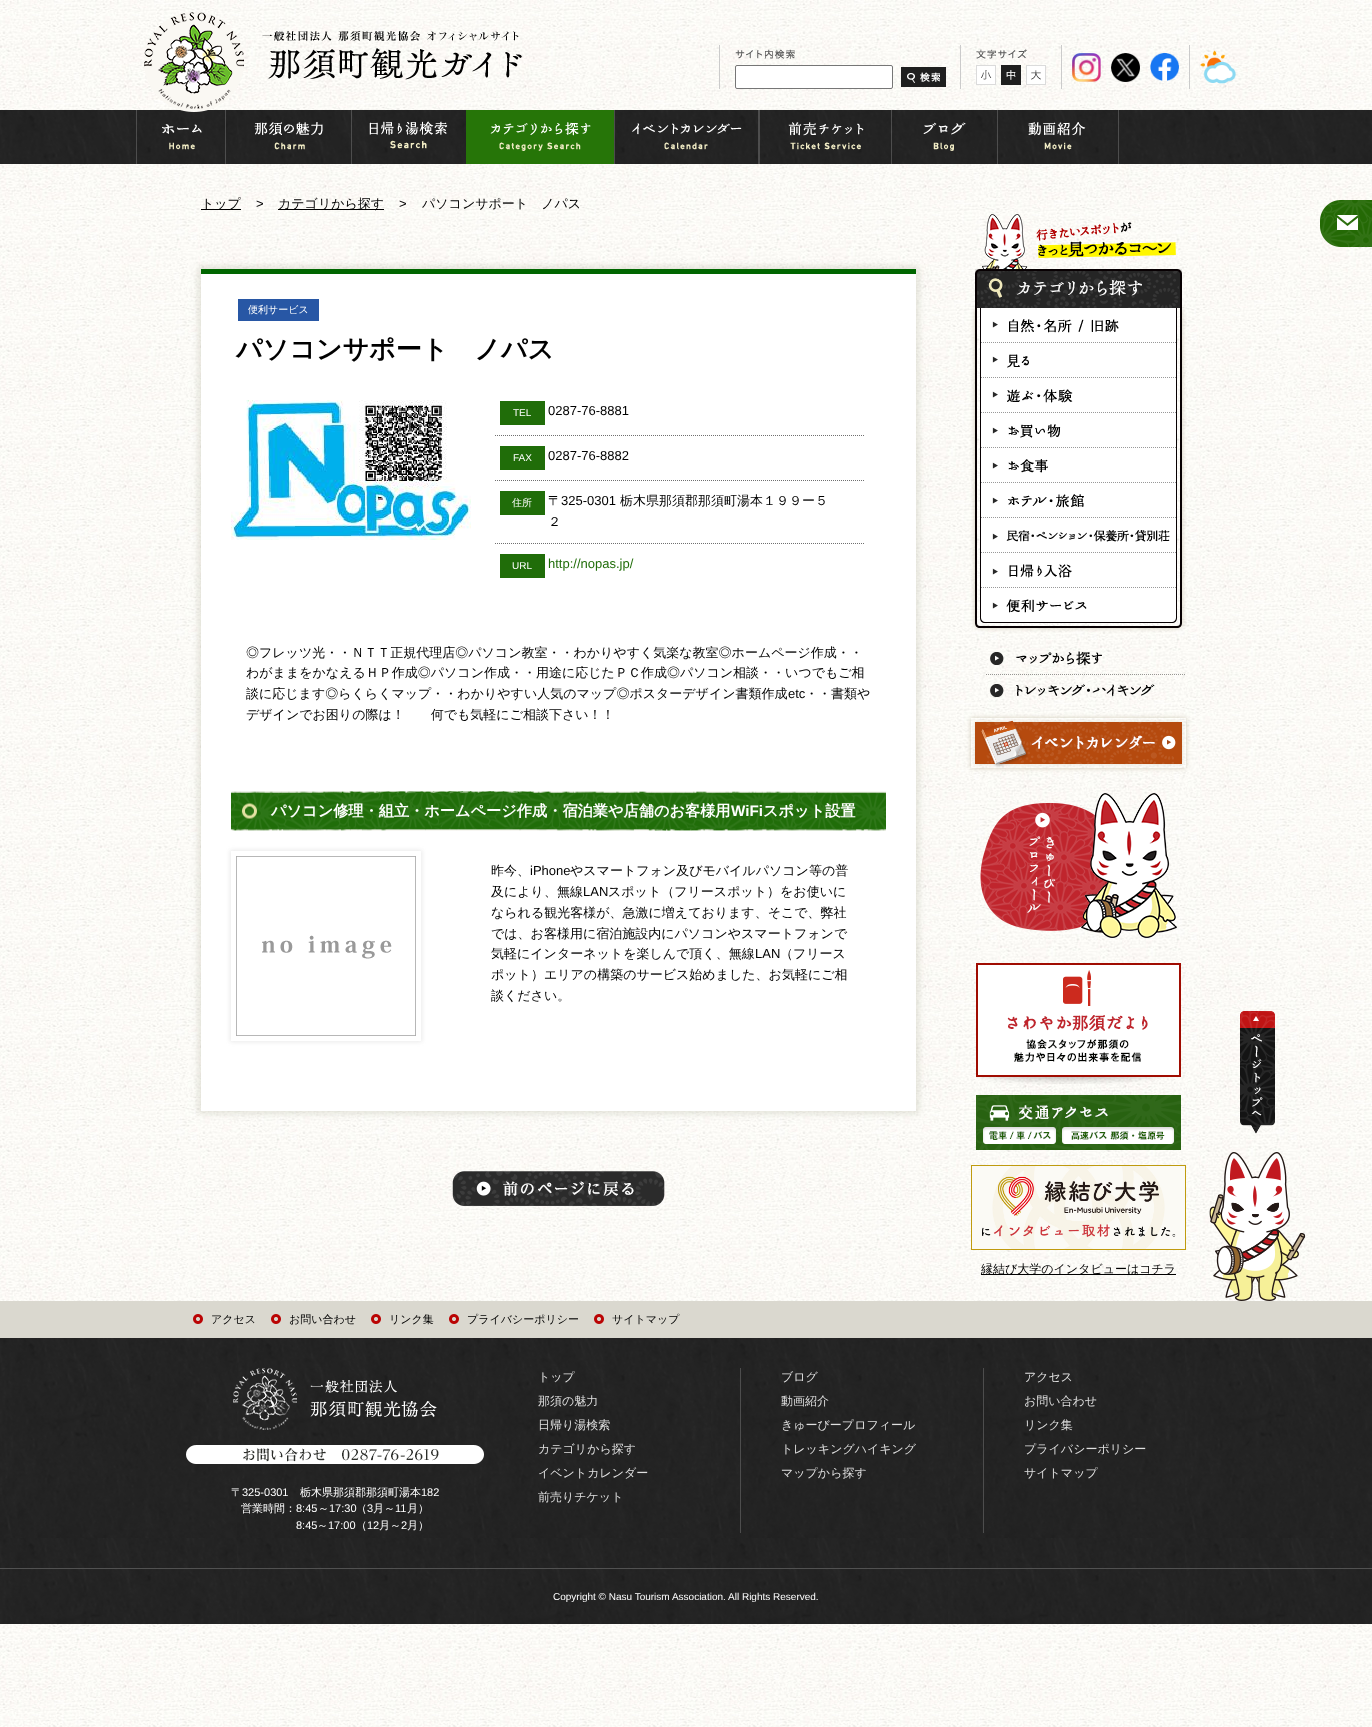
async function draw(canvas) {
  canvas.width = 1372;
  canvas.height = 1727;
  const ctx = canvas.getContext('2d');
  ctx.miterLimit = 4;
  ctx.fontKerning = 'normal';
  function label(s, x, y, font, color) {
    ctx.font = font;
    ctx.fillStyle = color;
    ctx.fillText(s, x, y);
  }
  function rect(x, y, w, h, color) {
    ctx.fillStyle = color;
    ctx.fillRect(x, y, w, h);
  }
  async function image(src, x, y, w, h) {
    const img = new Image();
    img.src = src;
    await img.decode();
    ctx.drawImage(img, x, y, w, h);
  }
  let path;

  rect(0, 0, 1372, 1727, '#fff');
  await image('assets/img1.png', 0, 0, 1372, 1727);
  await image('assets/img13.png', 0, 110, 1372, 54);
  await image('assets/img14.png', 136, 110, 66, 54);
  await image('assets/img15.png', 225, 110, 127, 54);
  rect(466, 110, 148, 54, '#267508');
  await image('assets/img2.png', 144, 12, 378, 100);
  rect(719, 45, 1, 44, '#cbcbcb');
  await image('assets/img3.png', 735, 49, 60, 10);
  ctx.fillStyle = '#fff';
  ctx.beginPath();
  ctx.roundRect(735.5, 65.5, 157, 23, 1.5);
  ctx.fill();
  ctx.strokeStyle = '#767676';
  ctx.stroke();
  await image('assets/img4.png', 901, 67, 45, 20);
  rect(960, 45, 1, 44, '#cbcbcb');
  await image('assets/img5.png', 976, 49, 51, 10);
  await image('assets/img6.png', 976, 65, 20, 20);
  await image('assets/img7.png', 1001, 65, 20, 20);
  await image('assets/img8.png', 1026, 65, 20, 20);
  rect(1061, 45, 1, 44, '#cbcbcb');
  await image('assets/img9.png', 1072, 53, 29, 29);
  await image('assets/img10.png', 1111, 53, 29, 29);
  await image('assets/img11.png', 1150, 53, 29, 28);
  rect(1189, 45, 1, 44, '#cbcbcb');
  await image('assets/img12.png', 1200, 50, 36, 34);
  await image('assets/img16.png', 369, 121, 79, 28);
  await image('assets/img17.png', 490, 122, 101, 29);
  await image('assets/img18.png', 614, 110, 145, 54);
  await image('assets/img19.png', 759, 110, 105, 54);
  await image('assets/img20.png', 891, 110, 107, 54);
  await image('assets/img21.png', 1028, 110, 91, 54);
  rect(201, 209, 40, 1, '#000');
  label('トップ', 201, 208, '500 13px WenQuanYi Zen Hei', '#000');
  label('>', 256, 208, '13px Liberation Sans', '#000');
  rect(278, 209, 106, 1, '#000');
  label('カテゴリから探す', 278, 208, '500 13px WenQuanYi Zen Hei', '#000');
  label('>', 399, 208, '13px Liberation Sans', '#000');
  label('パソコンサポート　ノパス', 422, 208, '500 13px WenQuanYi Zen Hei', '#000');
  await image('assets/img22.png', 1320, 200, 52, 47);
  ctx.fillStyle = '#8a876d36';
  ctx.filter = 'blur(3px)';
  ctx.beginPath();
  ctx.rect(198, 266, 721, 848);
  ctx.fill();
  ctx.filter = 'none';
  rect(201, 269, 715, 5, '#060');
  rect(201, 274, 715, 837, '#fff');
  rect(238, 299, 81, 22, '#2857a5');
  label('便利サービス', 248, 313, '500 10px WenQuanYi Zen Hei', '#fff');
  label('パソコンサポート　ノパス', 236, 358, 'bold 26px WenQuanYi Zen Hei', '#000');
  await image('assets/img23.png', 231, 400, 240, 140);
  rect(500, 401, 45, 24, '#206d09');
  label('TEL', 513, 416, '10px Liberation Sans', '#fff');
  label('0287-76-8881', 548, 415, '13px Liberation Sans', '#000');
  path = new Path2D('M495 435.5H865');
  ctx.strokeStyle = '#707070';
  ctx.setLineDash([1, 1]);
  ctx.stroke(path);
  rect(500, 446, 45, 24, '#206d09');
  label('FAX', 513, 461, '10px Liberation Sans', '#fff');
  label('0287-76-8882', 548, 460, '13px Liberation Sans', '#000');
  path = new Path2D('M495 480.5H865');
  ctx.stroke(path);
  rect(500, 491, 45, 24, '#206d09');
  label('住所', 512, 506, '500 10px WenQuanYi Zen Hei', '#fff');
  label('〒', 548, 505, '500 13px WenQuanYi Zen Hei', '#000');
  label('325-0301', 561, 505, '13px Liberation Sans', '#000');
  label('栃木県那須郡那須町湯本１９９ー５', 620, 505, '500 13px WenQuanYi Zen Hei', '#000');
  label('２', 548, 526, '500 13px WenQuanYi Zen Hei', '#000');
  path = new Path2D('M495 543.5H865');
  ctx.stroke(path);
  rect(500, 554, 45, 24, '#206d09');
  label('URL', 512, 569, '10px Liberation Sans', '#fff');
  label('http://nopas.jp/', 548, 568, '13px Liberation Sans', '#206d09');
  label('◎フレッツ光・・ＮＴＴ正規代理店◎パソコン教室・・わかりやすく気楽な教室◎ホームページ作成・・', 246, 657, '500 13px WenQuanYi Zen Hei', '#000');
  label('わがままをかなえるＨＰ作成◎パソコン作成・・用途に応じたＰＣ作成◎パソコン相談・・いつでもご相', 246, 677, '500 13px WenQuanYi Zen Hei', '#000');
  label('談に応じます◎らくらくマップ・・わかりやすい人気のマップ◎ポスターデザイン書類作成', 246, 698, '500 13px WenQuanYi Zen Hei', '#000');
  label('etc', 788, 698, '13px Liberation Sans', '#000');
  label('・・書類や', 805, 698, '500 13px WenQuanYi Zen Hei', '#000');
  label('デザインでお困りの際は！　　何でも気軽にご相談下さい！！', 246, 719, '500 13px WenQuanYi Zen Hei', '#000');
  await image('assets/img24.png', 231, 791, 655, 40);
  label('パソコン修理・組立・ホームページ作成・宿泊業や店舗のお客様用', 271, 816, 'bold 15.2px WenQuanYi Zen Hei', '#fff');
  label('WiFi', 731, 816, 'bold 15.2px Liberation Sans', '#fff');
  label('スポット設置', 763, 816, 'bold 15.2px WenQuanYi Zen Hei', '#fff');
  ctx.save();
  path = new Path2D('M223 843H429V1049H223ZM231 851H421V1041H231Z');
  ctx.clip(path, 'evenodd');
  ctx.fillStyle = '#d9d9d98f';
  ctx.filter = 'blur(2px)';
  ctx.beginPath();
  ctx.rect(230, 850, 192, 192);
  ctx.fill();
  ctx.filter = 'none';
  ctx.restore();
  await image('assets/img25.png', 236, 856, 180, 180);
  label('昨今、', 491, 875, '500 13px WenQuanYi Zen Hei', '#000');
  label('iPhone', 530, 875, '13px Liberation Sans', '#000');
  label('やスマートフォン及びモバイルパソコン等の普', 570, 875, '500 13px WenQuanYi Zen Hei', '#000');
  label('及により、無線', 491, 896, '500 13px WenQuanYi Zen Hei', '#000');
  label('LAN', 583, 896, '13px Liberation Sans', '#000');
  label('スポット（フリースポット）をお使いに', 608, 896, '500 13px WenQuanYi Zen Hei', '#000');
  label('なられる観光客様が、急激に増えております、そこで、弊社', 491, 917, '500 13px WenQuanYi Zen Hei', '#000');
  label('では、お客様用に宿泊施設内にパソコンやスマートフォンで', 491, 938, '500 13px WenQuanYi Zen Hei', '#000');
  label('気軽にインターネットを楽しんで頂く、無線', 491, 958, '500 13px WenQuanYi Zen Hei', '#000');
  label('LAN', 755, 958, '13px Liberation Sans', '#000');
  label('（フリース', 780, 958, '500 13px WenQuanYi Zen Hei', '#000');
  label('ポット）エリアの構築のサービス始めました、お気軽にご相', 491, 979, '500 13px WenQuanYi Zen Hei', '#000');
  label('談ください。', 491, 1000, '500 13px WenQuanYi Zen Hei', '#000');
  await image('assets/img26.png', 452, 1171, 213, 35);
  await image('assets/img27.png', 982, 214, 194, 55);
  ctx.save();
  path = new Path2D('M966 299H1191V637H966ZM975 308H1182V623C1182 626 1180 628 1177 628H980C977 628 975 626 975 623Z');
  ctx.clip(path, 'evenodd');
  ctx.fillStyle = '#d3cdba';
  ctx.filter = 'blur(2.5px)';
  ctx.beginPath();
  ctx.roundRect(975, 308, 207, 320, 5);
  ctx.fill();
  ctx.filter = 'none';
  ctx.restore();
  await image('assets/img28.png', 975, 269, 207, 39);
  ctx.fillStyle = '#070002';
  path = new Path2D('M975 308H1182V623C1182 626 1180 628 1177 628H980C977 628 975 626 975 623ZM977 308H1180V623C1180 625 1179 626 1177 626H980C978 626 977 625 977 623Z');
  ctx.fill(path, 'evenodd');
  ctx.fillStyle = '#fff';
  ctx.beginPath();
  ctx.roundRect(980, 308, 197, 315, [0, 0, 5, 5]);
  ctx.fill();
  ctx.fillStyle = '#070002';
  path = new Path2D('M980 308H1177V618C1177 621 1175 623 1172 623H985C982 623 980 621 980 618ZM981 308H1176V618C1176 620 1174 622 1172 622H985C983 622 981 620 981 618Z');
  ctx.fill(path, 'evenodd');
  path = new Path2D('M981 342.5H1176');
  ctx.strokeStyle = '#999';
  ctx.stroke(path);
  await image('assets/img29.png', 992, 319, 127, 14);
  path = new Path2D('M981 377.5H1176');
  ctx.stroke(path);
  await image('assets/img30.png', 992, 354, 37, 14);
  path = new Path2D('M981 412.5H1176');
  ctx.stroke(path);
  await image('assets/img31.png', 992, 389, 81, 14);
  path = new Path2D('M981 447.5H1176');
  ctx.stroke(path);
  await image('assets/img32.png', 992, 424, 69, 14);
  path = new Path2D('M981 482.5H1176');
  ctx.stroke(path);
  await image('assets/img33.png', 992, 459, 56, 14);
  path = new Path2D('M981 517.5H1176');
  ctx.stroke(path);
  await image('assets/img34.png', 992, 494, 92, 14);
  path = new Path2D('M981 552.5H1176');
  ctx.stroke(path);
  await image('assets/img35.png', 992, 530, 178, 12);
  path = new Path2D('M981 587.5H1176');
  ctx.stroke(path);
  await image('assets/img36.png', 992, 564, 80, 14);
  await image('assets/img37.png', 992, 599, 95, 14);
  await image('assets/img38.png', 990, 652, 14, 13);
  path = new Path2D('M986 674.5H1186');
  ctx.strokeStyle = '#989794';
  ctx.stroke(path);
  await image('assets/img39.png', 1016, 651, 86, 15);
  await image('assets/img40.png', 990, 684, 14, 13);
  await image('assets/img41.png', 1016, 684, 139, 13);
  ctx.save();
  path = new Path2D('M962 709H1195V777H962ZM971 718H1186V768H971Z');
  ctx.clip(path, 'evenodd');
  ctx.fillStyle = '#d3cdba';
  ctx.filter = 'blur(2.5px)';
  ctx.beginPath();
  ctx.rect(971, 718, 215, 50);
  ctx.fill();
  ctx.filter = 'none';
  ctx.restore();
  await image('assets/img42.png', 972, 719, 213, 49);
  await image('assets/img43.png', 980, 793, 197, 145);
  await image('assets/img44.png', 976, 963, 205, 121);
  await image('assets/img45.png', 976, 1095, 205, 55);
  await image('assets/img46.png', 971, 1165, 215, 85);
  rect(981, 1274, 195, 1, '#000');
  label('縁結び大学のインタビューはコチラ', 981, 1273, '500 12px WenQuanYi Zen Hei', '#000');
  await image('assets/img47.png', 1209, 1011, 97, 290);
  rect(0, 1301, 1372, 37, '#dad8cf');
  await image('assets/img48.png', 193, 1314, 10, 10);
  label('アクセス', 211, 1323, '500 11px WenQuanYi Zen Hei', '#000');
  await image('assets/img48.png', 271, 1314, 10, 10);
  label('お問い合わせ', 289, 1323, '500 11px WenQuanYi Zen Hei', '#000');
  await image('assets/img48.png', 371, 1314, 10, 10);
  label('リンク集', 389, 1323, '500 11px WenQuanYi Zen Hei', '#000');
  await image('assets/img48.png', 449, 1314, 10, 10);
  label('プライバシーポリシー', 467, 1323, '500 11px WenQuanYi Zen Hei', '#000');
  await image('assets/img48.png', 594, 1314, 10, 10);
  label('サイトマップ', 612, 1323, '500 11px WenQuanYi Zen Hei', '#000');
  await image('assets/img49.png', 0, 1338, 1372, 286);
  label('トップ', 538, 1381, '500 12px WenQuanYi Zen Hei', '#dfdfdf');
  label('那須の魅力', 538, 1405, '500 12px WenQuanYi Zen Hei', '#dfdfdf');
  label('日帰り湯検索', 538, 1429, '500 12px WenQuanYi Zen Hei', '#dfdfdf');
  label('カテゴリから探す', 538, 1453, '500 12px WenQuanYi Zen Hei', '#dfdfdf');
  label('イベントカレンダー', 538, 1477, '500 12px WenQuanYi Zen Hei', '#dfdfdf');
  label('前売りチケット', 538, 1501, '500 12px WenQuanYi Zen Hei', '#dfdfdf');
  rect(740, 1368, 1, 165, '#4d4d4d');
  label('ブログ', 781, 1381, '500 12px WenQuanYi Zen Hei', '#dfdfdf');
  label('動画紹介', 781, 1405, '500 12px WenQuanYi Zen Hei', '#dfdfdf');
  label('きゅーびープロフィール', 781, 1429, '500 12px WenQuanYi Zen Hei', '#dfdfdf');
  label('トレッキングハイキング', 781, 1453, '500 12px WenQuanYi Zen Hei', '#dfdfdf');
  label('マップから探す', 781, 1477, '500 12px WenQuanYi Zen Hei', '#dfdfdf');
  rect(983, 1368, 1, 165, '#4d4d4d');
  label('アクセス', 1024, 1381, '500 12px WenQuanYi Zen Hei', '#dfdfdf');
  label('お問い合わせ', 1024, 1405, '500 12px WenQuanYi Zen Hei', '#dfdfdf');
  label('リンク集', 1024, 1429, '500 12px WenQuanYi Zen Hei', '#dfdfdf');
  label('プライバシーポリシー', 1024, 1453, '500 12px WenQuanYi Zen Hei', '#dfdfdf');
  label('サイトマップ', 1024, 1477, '500 12px WenQuanYi Zen Hei', '#dfdfdf');
  await image('assets/img50.png', 233, 1368, 204, 62);
  await image('assets/img51.png', 186, 1445, 298, 19);
  label('〒', 231, 1496, '500 11px WenQuanYi Zen Hei', '#fff');
  label('325-0301', 242, 1496, '11px Liberation Sans', '#fff');
  label('栃木県那須郡那須町湯本', 300, 1496, '500 11px WenQuanYi Zen Hei', '#fff');
  label('182', 421, 1496, '11px Liberation Sans', '#fff');
  label('営業時間：', 241, 1512, '500 11px WenQuanYi Zen Hei', '#fff');
  label('8:45', 296, 1512, '11px Liberation Sans', '#fff');
  label('～', 318, 1512, '500 11px WenQuanYi Zen Hei', '#fff');
  label('17:30', 329, 1512, '11px Liberation Sans', '#fff');
  label('（', 356, 1512, '500 11px WenQuanYi Zen Hei', '#fff');
  label('3', 367, 1512, '11px Liberation Sans', '#fff');
  label('月～', 373, 1512, '500 11px WenQuanYi Zen Hei', '#fff');
  label('11', 395, 1512, '11px Liberation Sans', '#fff');
  label('月）', 407, 1512, '500 11px WenQuanYi Zen Hei', '#fff');
  label('8:45', 296, 1529, '11px Liberation Sans', '#fff');
  label('～', 317, 1529, '500 11px WenQuanYi Zen Hei', '#fff');
  label('17:00', 328, 1529, '11px Liberation Sans', '#fff');
  label('（', 356, 1529, '500 11px WenQuanYi Zen Hei', '#fff');
  label('12', 367, 1529, '11px Liberation Sans', '#fff');
  label('月～', 379, 1529, '500 11px WenQuanYi Zen Hei', '#fff');
  label('2', 401, 1529, '11px Liberation Sans', '#fff');
  label('月）', 407, 1529, '500 11px WenQuanYi Zen Hei', '#fff');
  rect(0, 1568, 1372, 1, '#515151');
  label('Copyright © Nasu Tourism Association. All Rights Reserved.', 553, 1600, '10px Liberation Sans', '#fff');
}

draw(document.querySelector('canvas'));
